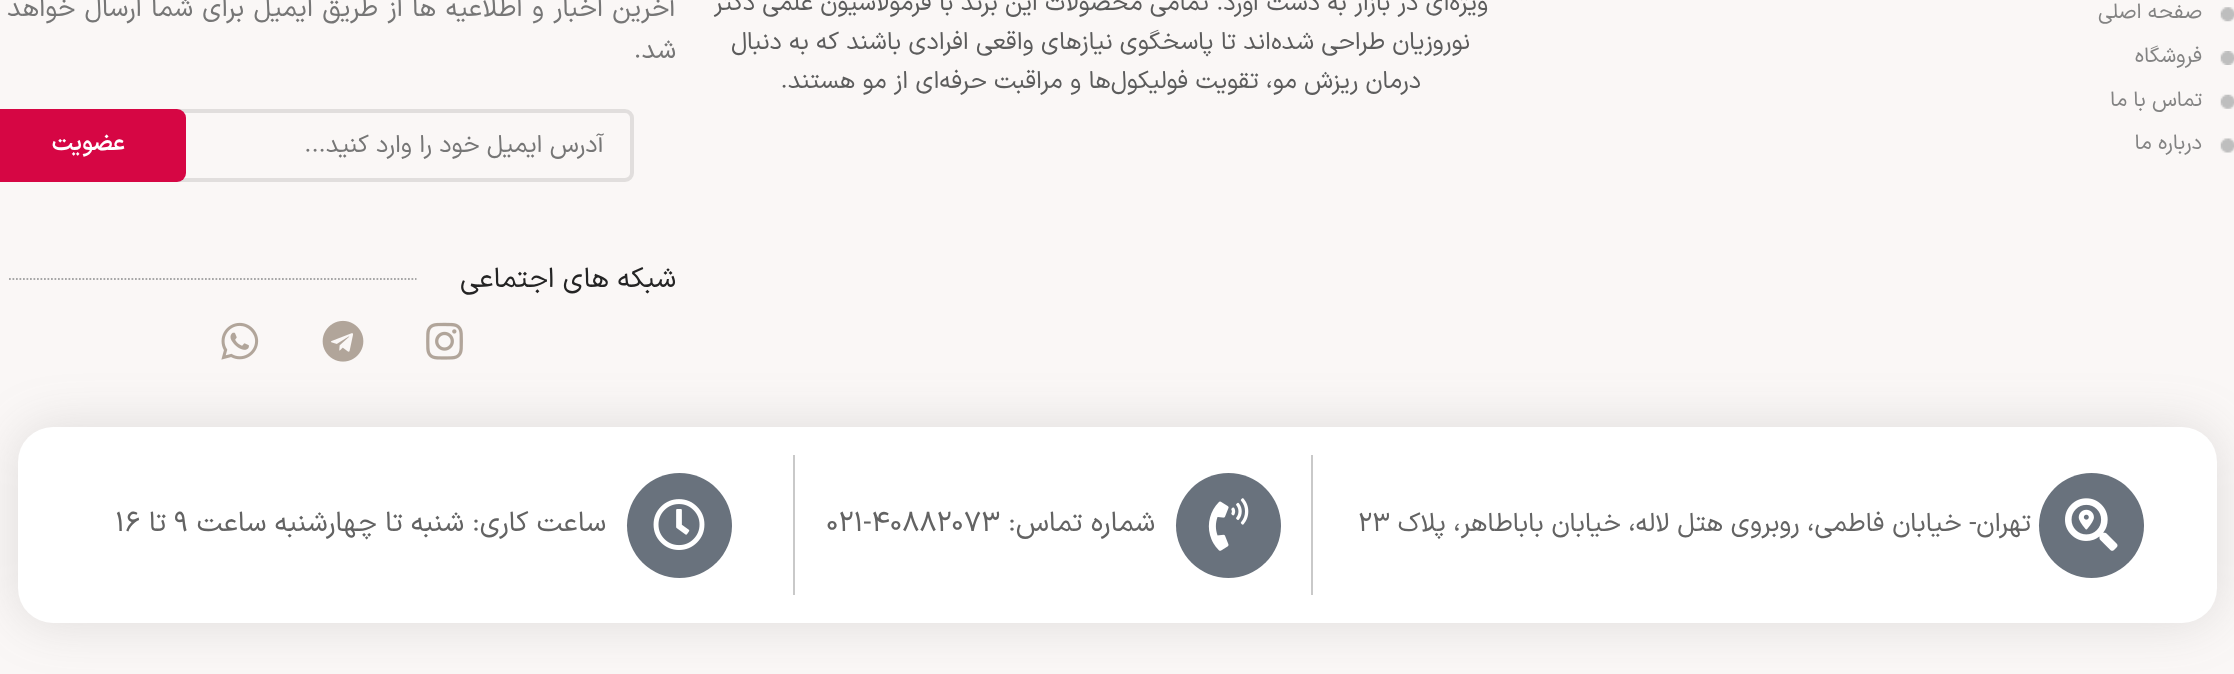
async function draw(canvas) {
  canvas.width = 2234;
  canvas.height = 674;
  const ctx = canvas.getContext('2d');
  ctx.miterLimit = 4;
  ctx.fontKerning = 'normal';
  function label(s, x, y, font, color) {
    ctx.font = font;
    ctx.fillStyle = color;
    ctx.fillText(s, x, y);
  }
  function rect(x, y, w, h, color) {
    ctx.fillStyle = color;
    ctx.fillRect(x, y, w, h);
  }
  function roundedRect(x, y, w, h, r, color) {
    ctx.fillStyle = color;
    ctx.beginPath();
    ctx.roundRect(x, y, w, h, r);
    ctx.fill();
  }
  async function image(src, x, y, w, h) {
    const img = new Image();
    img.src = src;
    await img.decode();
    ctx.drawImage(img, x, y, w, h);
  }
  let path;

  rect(0, 0, 2234, 674, '#faf7f6');
  await image('assets/img1.png', 2220, 7, 14, 15);
  ctx.direction = 'rtl';
  label('صفحه اصلی', 2202, 18, '21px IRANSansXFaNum', '#838383');
  await image('assets/img2.png', 2220, 51, 14, 14);
  label('فروشگاه', 2202, 62, '21px IRANSansXFaNum', '#838383');
  await image('assets/img3.png', 2220, 94, 14, 15);
  label('تماس با ما', 2202, 106, '21px IRANSansXFaNum', '#838383');
  await image('assets/img4.png', 2220, 138, 14, 15);
  label('درباره ما', 2202, 149, '21px IRANSansXFaNum', '#838383');
  label('ویژه‌ای در بازار به دست آورد. تمامی محصولات این برند با فرمولاسیون علمی دکتر', 1488, 10, '24.5px IRANSansXFaNum', '#5c5c5c');
  label('نوروزیان طراحی شده‌اند تا پاسخگوی نیازهای واقعی افرادی باشند که به دنبال', 1470, 49, '24.5px IRANSansXFaNum', '#5c5c5c');
  label('درمان ریزش مو، تقویت فولیکول‌ها و مراقبت حرفه‌ای از مو هستند.', 1421, 88, '24.5px IRANSansXFaNum', '#5c5c5c');
  ctx.wordSpacing = '1.5px';
  label('آخرین اخبار و اطلاعیه ها از طریق ایمیل برای شما ارسال خواهد', 676, 16, '26.25px IRANSansXFaNum', '#767676');
  ctx.wordSpacing = '0px';
  label('شد.', 676, 58, '26.25px IRANSansXFaNum', '#767676');
  ctx.beginPath();
  ctx.roundRect(128, 111, 504, 69, 7);
  ctx.strokeStyle = '#e1dedd';
  ctx.lineWidth = 4;
  ctx.stroke();
  label('آدرس ایمیل خود را وارد کنید...', 604, 152, '24.5px IRANSansXFaNum', '#767676');
  roundedRect(-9, 109, 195, 73, 9, '#d60644');
  label('عضویت', 125, 150, '600 23px IRANSansXFaNum', '#fff');
  label('شبکه های اجتماعی', 676, 287, '28px IRANSansXFaNum', '#242424');
  path = new Path2D('M9 279H416.5');
  ctx.strokeStyle = '#a7a7a7';
  ctx.lineWidth = 1.8;
  ctx.setLineDash([1.75, 1.75]);
  ctx.stroke(path);
  await image('assets/img5.png', 426, 322, 37, 38);
  await image('assets/img6.png', 322, 320, 42, 42);
  await image('assets/img7.png', 221, 322, 38, 38);
  ctx.fillStyle = '#6565652e';
  ctx.filter = 'blur(26px)';
  ctx.beginPath();
  ctx.roundRect(18, 427, 2199, 196, 35);
  ctx.fill();
  ctx.filter = 'none';
  roundedRect(18, 427, 2199, 196, 35, '#fff');
  ctx.fillStyle = '#69727d';
  ctx.beginPath();
  ctx.arc(2091.5, 525.5, 52.5, 0, 2 * Math.PI);
  ctx.fill();
  await image('assets/img8.png', 2065, 498, 53, 53);
  label('تهران- خیابان فاطمی، روبروی هتل لاله، خیابان باباطاهر، پلاک', 2031, 531, '26.25px IRANSansXFaNum', '#636363');
  ctx.direction = 'ltr';
  label('۲۳', 1358, 531, '26.25px IRANSansXFaNum', '#636363');
  rect(1311, 455, 2, 140, '#c9c9c9');
  rect(793, 455, 2, 140, '#c9c9c9');
  ctx.fillStyle = '#69727d';
  ctx.beginPath();
  ctx.arc(1228.5, 525.5, 52.5, 0, 2 * Math.PI);
  ctx.fill();
  await image('assets/img9.png', 1208, 498, 41, 53);
  ctx.direction = 'rtl';
  label('شماره تماس:', 1155, 531, '28px IRANSansXFaNum', '#636363');
  ctx.direction = 'ltr';
  label('۰۲۱-۴۰۸۸۲۰۷۳', 826, 531, '28px IRANSansXFaNum', '#636363');
  ctx.fillStyle = '#69727d';
  ctx.beginPath();
  ctx.arc(679.5, 525.5, 52.5, 0, 2 * Math.PI);
  ctx.fill();
  await image('assets/img10.png', 653, 499, 52, 51);
  ctx.direction = 'rtl';
  label('ساعت کاری: شنبه تا چهارشنبه ساعت', 606, 531, '28px IRANSansXFaNum', '#636363');
  ctx.direction = 'ltr';
  label('9', 174, 531, '28px IRANSansXFaNum', '#636363');
  ctx.direction = 'rtl';
  label('تا', 166, 531, '28px IRANSansXFaNum', '#636363');
  ctx.direction = 'ltr';
  label('16', 115, 531, '28px IRANSansXFaNum', '#636363');
}

draw(document.querySelector('canvas'));
